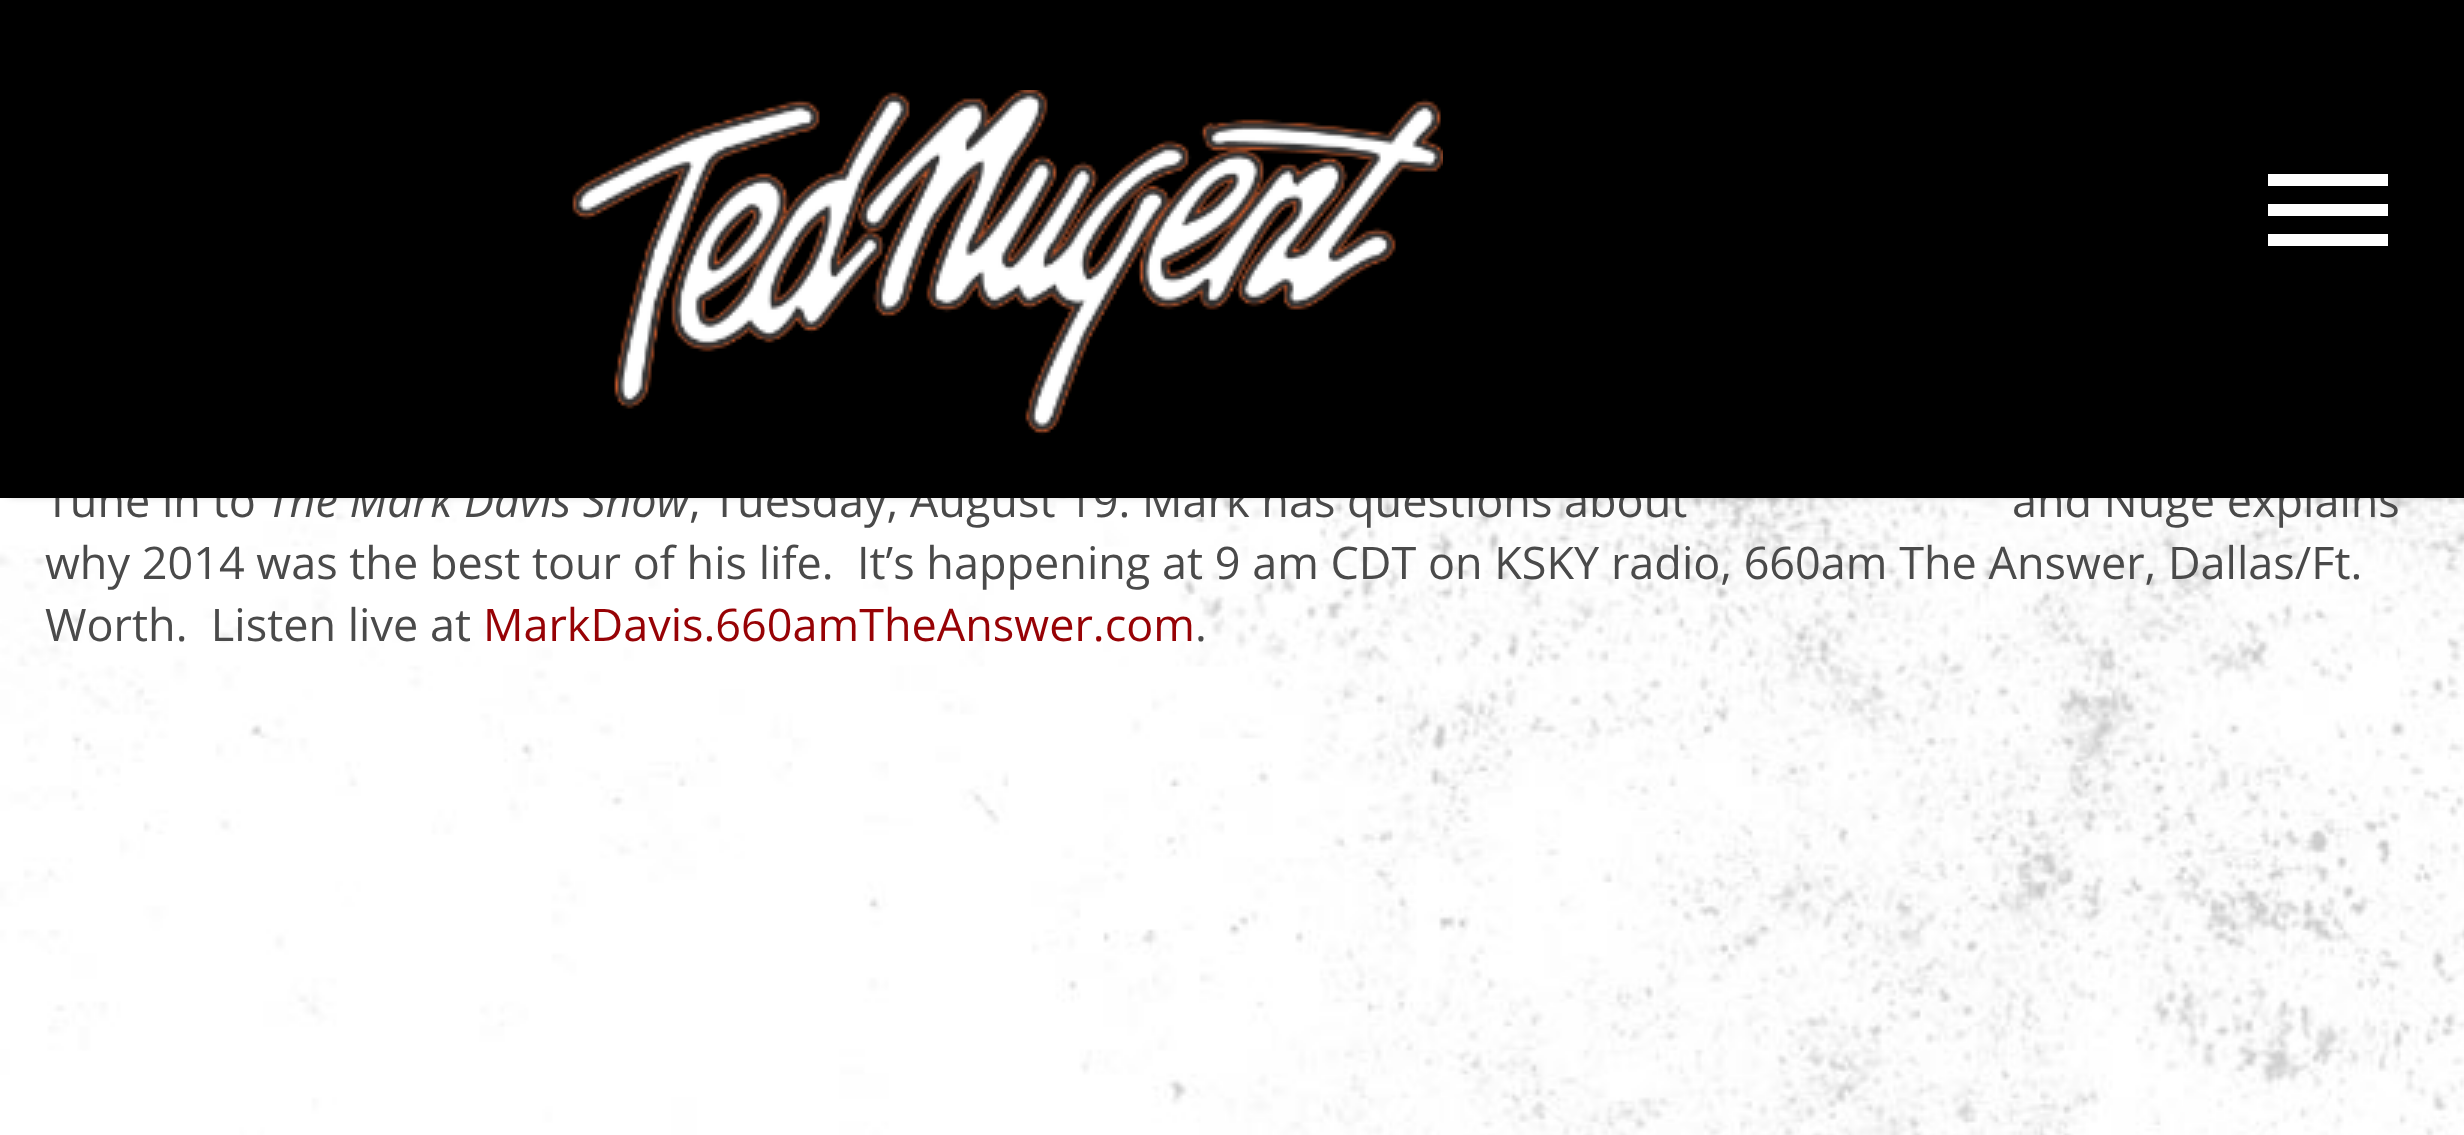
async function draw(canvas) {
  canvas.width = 2464;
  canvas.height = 1135;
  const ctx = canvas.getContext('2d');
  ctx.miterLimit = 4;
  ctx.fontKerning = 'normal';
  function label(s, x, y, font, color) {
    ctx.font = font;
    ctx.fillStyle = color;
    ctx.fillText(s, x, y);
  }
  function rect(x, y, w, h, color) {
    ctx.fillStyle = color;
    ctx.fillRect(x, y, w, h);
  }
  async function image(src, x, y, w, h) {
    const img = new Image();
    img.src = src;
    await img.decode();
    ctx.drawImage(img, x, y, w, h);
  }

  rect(0, 0, 2464, 1135, '#fff');
  await image('assets/img2.png', 0, 498, 2464, 637);
  ctx.fillStyle = '#0000004d';
  ctx.filter = 'blur(4.5px)';
  ctx.beginPath();
  ctx.rect(9, 15, 2448, 480);
  ctx.fill();
  ctx.filter = 'none';
  label('Tune in to', 45, 517, '45px Open Sans', '#4a4a4a');
  label('The Mark Davis Show', 267, 517, 'italic 45px Open Sans', '#4a4a4a');
  label(', Tuesday, August 19. Mark has questions about', 689, 517, '45px Open Sans', '#4a4a4a');
  label('and Nuge explains', 2012, 517, '45px Open Sans', '#4a4a4a');
  rect(0, 0, 2464, 498, '#000');
  await image('assets/img1.png', 572, 90, 871, 346);
  rect(2268, 174, 120, 12, '#fff');
  rect(2268, 204, 120, 12, '#fff');
  rect(2268, 234, 120, 12, '#fff');
  label('why 2014 was the best tour of his life.  It’s happening at 9 am CDT on KSKY radio, 660am The Answer, Dallas/Ft.', 45, 579, '45px Open Sans', '#4a4a4a');
  label('Worth.  Listen live at', 45, 641, '45px Open Sans', '#4a4a4a');
  label('MarkDavis.660amTheAnswer.com', 483, 641, '45px Open Sans', '#970205');
  label('.', 1195, 641, '45px Open Sans', '#4a4a4a');
}

draw(document.querySelector('canvas'));
